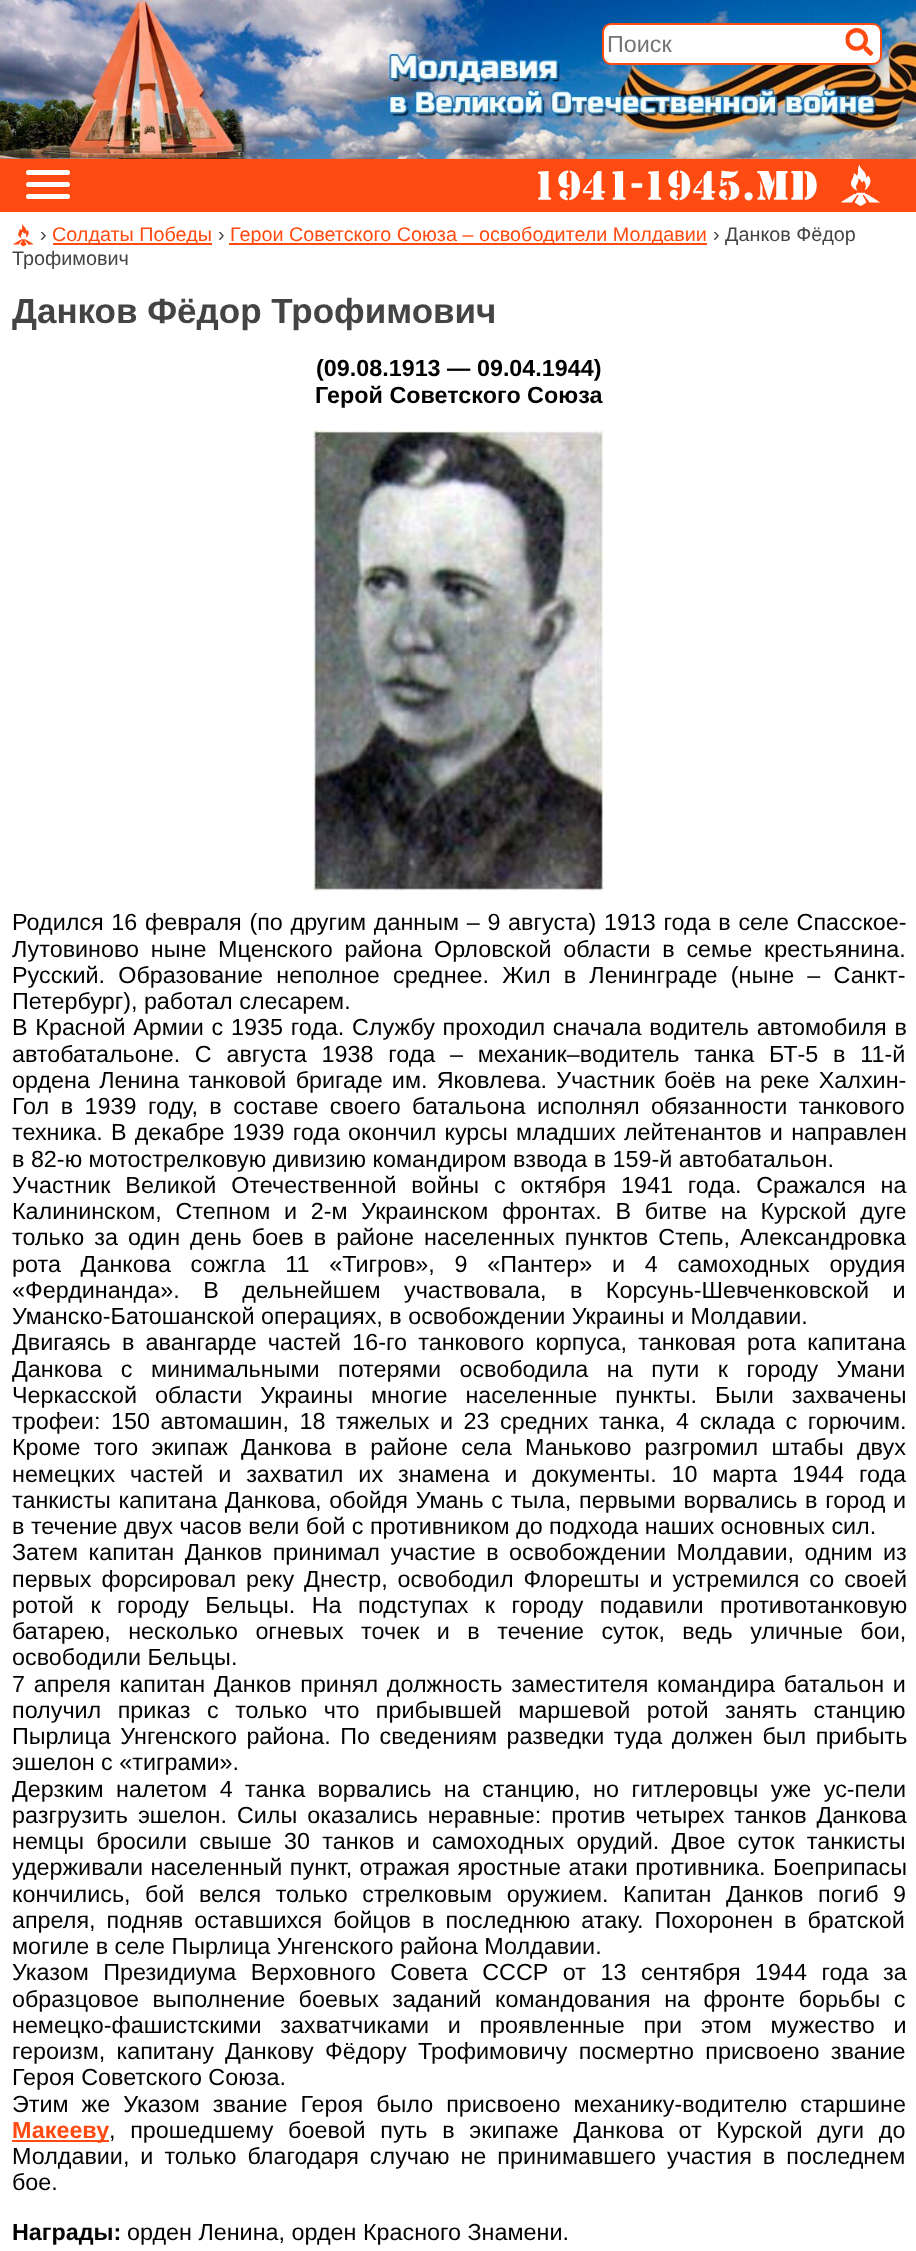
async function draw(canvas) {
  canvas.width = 916;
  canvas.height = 2251;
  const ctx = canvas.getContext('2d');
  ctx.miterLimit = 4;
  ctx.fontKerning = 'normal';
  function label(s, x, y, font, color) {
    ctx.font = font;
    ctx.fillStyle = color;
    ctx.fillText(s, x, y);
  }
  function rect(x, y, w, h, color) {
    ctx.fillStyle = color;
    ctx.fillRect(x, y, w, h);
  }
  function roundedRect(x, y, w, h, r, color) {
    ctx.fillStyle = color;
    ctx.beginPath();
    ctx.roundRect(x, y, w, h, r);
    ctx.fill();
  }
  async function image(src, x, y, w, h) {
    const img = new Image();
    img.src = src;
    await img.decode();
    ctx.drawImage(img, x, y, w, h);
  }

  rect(0, 0, 916, 2251, '#fff');
  await image('assets/img1.png', 0, 0, 916, 159);
  ctx.beginPath();
  ctx.roundRect(603, 24, 278, 40, 8);
  ctx.fill();
  ctx.strokeStyle = '#ff4a11';
  ctx.lineWidth = 2;
  ctx.stroke();
  label('Поиск', 607, 52, '23.35px Liberation Sans', '#757575');
  await image('assets/img2.png', 845, 28, 28, 28);
  rect(0, 159, 916, 53, '#ff4a11');
  roundedRect(26, 170, 44, 5, 2.5, '#fff');
  roundedRect(26, 182, 44, 5, 2.5, '#fff');
  roundedRect(26, 194, 44, 5, 2.5, '#fff');
  await image('assets/img3.png', 537, 170, 280, 31);
  await image('assets/img4.png', 841, 165, 39, 41);
  await image('assets/img5.png', 13, 224, 21, 23);
  label('›', 40, 241, '19.8px Liberation Sans', '#444');
  rect(53, 243, 159, 2, '#ff4a11');
  label('Солдаты Победы', 52, 241, '19.8px Liberation Sans', '#ff4a11');
  label('›', 218, 241, '19.8px Liberation Sans', '#444');
  rect(229, 243, 478, 2, '#ff4a11');
  label('Герои Советского Союза – освободители Молдавии', 230, 241, '19.8px Liberation Sans', '#ff4a11');
  label('› Данков Фёдор', 713, 241, '19.8px Liberation Sans', '#444');
  label('Трофимович', 12, 265, '19.8px Liberation Sans', '#444');
  label('Данков Фёдор Трофимович', 12, 323, 'bold 35px Liberation Sans', '#444');
  label('(09.08.1913 — 09.04.1944)', 316, 376, 'bold 23.35px Liberation Sans', '#000');
  label('Герой Советского Союза', 315, 403, 'bold 23.35px Liberation Sans', '#000');
  await image('assets/img6.png', 313, 430, 291, 461);
  ctx.wordSpacing = '1.2px';
  label('Родился 16 февраля (по другим данным – 9 августа) 1913 года в селе Спасское-', 12, 930, '23.35px Liberation Sans', '#000');
  ctx.wordSpacing = '5.25px';
  label('Лутовиново ныне Мценского района Орловской области в семье крестьянина.', 12, 957, '23.35px Liberation Sans', '#000');
  ctx.wordSpacing = '6.75px';
  label('Русский. Образование неполное среднее. Жил в Ленинграде (ныне – Санкт-', 12, 983, '23.35px Liberation Sans', '#000');
  ctx.wordSpacing = '0px';
  label('Петербург), работал слесарем.', 12, 1009, '23.35px Liberation Sans', '#000');
  ctx.wordSpacing = '1.25px';
  label('В Красной Армии с 1935 года. Службу проходил сначала водитель автомобиля в', 12, 1035, '23.35px Liberation Sans', '#000');
  ctx.wordSpacing = '8.25px';
  label('автобатальоне. С августа 1938 года – механик–водитель танка БТ-5 в 11-й', 12, 1062, '23.35px Liberation Sans', '#000');
  ctx.wordSpacing = '2.75px';
  label('ордена Ленина танковой бригаде им. Яковлева. Участник боёв на реке Халхин-', 12, 1088, '23.35px Liberation Sans', '#000');
  ctx.wordSpacing = '5px';
  label('Гол в 1939 году, в составе своего батальона исполнял обязанности танкового', 12, 1114, '23.35px Liberation Sans', '#000');
  ctx.wordSpacing = '1.75px';
  label('техника. В декабре 1939 года окончил курсы младших лейтенантов и направлен', 12, 1140, '23.35px Liberation Sans', '#000');
  ctx.wordSpacing = '0px';
  label('в 82-ю мотострелковую дивизию командиром взвода в 159-й автобатальон.', 12, 1167, '23.35px Liberation Sans', '#000');
  ctx.wordSpacing = '8.4px';
  label('Участник Великой Отечественной войны с октября 1941 года. Сражался на', 12, 1193, '23.35px Liberation Sans', '#000');
  ctx.wordSpacing = '7.25px';
  label('Калининском, Степном и 2-м Украинском фронтах. В битве на Курской дуге', 12, 1219, '23.35px Liberation Sans', '#000');
  ctx.wordSpacing = '3.6px';
  label('только за один день боев в районе населенных пунктов Степь, Александровка', 12, 1245, '23.35px Liberation Sans', '#000');
  ctx.wordSpacing = '13.25px';
  label('рота Данкова сожгла 11 «Тигров», 9 «Пантер» и 4 самоходных орудия', 12, 1272, '23.35px Liberation Sans', '#000');
  ctx.wordSpacing = '17px';
  label('«Фердинанда». В дельнейшем участвовала, в Корсунь-Шевченковской и', 12, 1298, '23.35px Liberation Sans', '#000');
  ctx.wordSpacing = '0px';
  label('Уманско-Батошанской операциях, в освобождении Украины и Молдавии.', 12, 1324, '23.35px Liberation Sans', '#000');
  ctx.wordSpacing = '4.75px';
  label('Двигаясь в авангарде частей 16-го танкового корпуса, танковая рота капитана', 12, 1350, '23.35px Liberation Sans', '#000');
  ctx.wordSpacing = '12px';
  label('Данкова с минимальными потерями освободила на пути к городу Умани', 12, 1377, '23.35px Liberation Sans', '#000');
  ctx.wordSpacing = '11.5px';
  label('Черкасской области Украины многие населенные пункты. Были захвачены', 12, 1403, '23.35px Liberation Sans', '#000');
  ctx.wordSpacing = '4.1px';
  label('трофеи: 150 автомашин, 18 тяжелых и 23 средних танка, 4 склада с горючим.', 12, 1429, '23.35px Liberation Sans', '#000');
  ctx.wordSpacing = '6.75px';
  label('Кроме того экипаж Данкова в районе села Маньково разгромил штабы двух', 12, 1455, '23.35px Liberation Sans', '#000');
  ctx.wordSpacing = '8.4px';
  label('немецких частей и захватил их знамена и документы. 10 марта 1944 года', 12, 1482, '23.35px Liberation Sans', '#000');
  ctx.wordSpacing = '1.25px';
  label('танкисты капитана Данкова, обойдя Умань с тыла, первыми ворвались в город и', 12, 1508, '23.35px Liberation Sans', '#000');
  ctx.wordSpacing = '0px';
  label('в течение двух часов вели бой с противником до подхода наших основных сил.', 12, 1534, '23.35px Liberation Sans', '#000');
  ctx.wordSpacing = '4px';
  label('Затем капитан Данков принимал участие в освобождении Молдавии, одним из', 12, 1560, '23.35px Liberation Sans', '#000');
  ctx.wordSpacing = '3.5px';
  label('первых форсировал реку Днестр, освободил Флорешты и устремился со своей', 12, 1587, '23.35px Liberation Sans', '#000');
  ctx.wordSpacing = '10px';
  label('ротой к городу Бельцы. На подступах к городу подавили противотанковую', 12, 1613, '23.35px Liberation Sans', '#000');
  ctx.wordSpacing = '11px';
  label('батарею, несколько огневых точек и в течение суток, ведь уличные бои,', 12, 1639, '23.35px Liberation Sans', '#000');
  ctx.wordSpacing = '0px';
  label('освободили Бельцы.', 12, 1665, '23.35px Liberation Sans', '#000');
  ctx.wordSpacing = '2.25px';
  label('7 апреля капитан Данков принял должность заместителя командира батальон и', 12, 1692, '23.35px Liberation Sans', '#000');
  ctx.wordSpacing = '10px';
  label('получил приказ с только что прибывшей маршевой ротой занять станцию', 12, 1718, '23.35px Liberation Sans', '#000');
  ctx.wordSpacing = '3px';
  label('Пырлица Унгенского района. По сведениям разведки туда должен был прибыть', 12, 1744, '23.35px Liberation Sans', '#000');
  ctx.wordSpacing = '0px';
  label('эшелон с «тиграми».', 12, 1770, '23.35px Liberation Sans', '#000');
  ctx.wordSpacing = '6px';
  label('Дерзким налетом 4 танка ворвались на станцию, но гитлеровцы уже ус-пели', 12, 1797, '23.35px Liberation Sans', '#000');
  ctx.wordSpacing = '3.5px';
  label('разгрузить эшелон. Силы оказались неравные: против четырех танков Данкова', 12, 1823, '23.35px Liberation Sans', '#000');
  ctx.wordSpacing = '5.75px';
  label('немцы бросили свыше 30 танков и самоходных орудий. Двое суток танкисты', 12, 1849, '23.35px Liberation Sans', '#000');
  ctx.wordSpacing = '1px';
  label('удерживали населенный пункт, отражая яростные атаки противника. Боеприпасы', 12, 1875, '23.35px Liberation Sans', '#000');
  ctx.wordSpacing = '8px';
  label('кончились, бой велся только стрелковым оружием. Капитан Данков погиб 9', 12, 1902, '23.35px Liberation Sans', '#000');
  ctx.wordSpacing = '4.5px';
  label('апреля, подняв оставшихся бойцов в последнюю атаку. Похоронен в братской', 12, 1928, '23.35px Liberation Sans', '#000');
  ctx.wordSpacing = '0px';
  label('могиле в селе Пырлица Унгенского района Молдавии.', 12, 1954, '23.35px Liberation Sans', '#000');
  ctx.wordSpacing = '8px';
  label('Указом Президиума Верховного Совета СССР от 13 сентября 1944 года за', 12, 1980, '23.35px Liberation Sans', '#000');
  ctx.wordSpacing = '7px';
  label('образцовое выполнение боевых заданий командования на фронте борьбы с', 12, 2007, '23.35px Liberation Sans', '#000');
  ctx.wordSpacing = '12.25px';
  label('немецко-фашистскими захватчиками и проявленные при этом мужество и', 12, 2033, '23.35px Liberation Sans', '#000');
  ctx.wordSpacing = '4.75px';
  label('героизм, капитану Данкову Фёдору Трофимовичу посмертно присвоено звание', 12, 2059, '23.35px Liberation Sans', '#000');
  ctx.wordSpacing = '0px';
  label('Героя Советского Союза.', 12, 2085, '23.35px Liberation Sans', '#000');
  ctx.wordSpacing = '6.5px';
  label('Этим же Указом звание Героя было присвоено механику-водителю старшине', 12, 2112, '23.35px Liberation Sans', '#000');
  rect(12, 2140, 97, 2, '#ff4a11');
  ctx.wordSpacing = '0px';
  label('Макееву', 12, 2138, 'bold 23.35px Liberation Sans', '#ff4a11');
  ctx.wordSpacing = '8.25px';
  label(', прошедшему боевой путь в экипаже Данкова от Курской дуги до', 109, 2138, '23.35px Liberation Sans', '#000');
  ctx.wordSpacing = '4.5px';
  label('Молдавии, и только благодаря случаю не принимавшего участия в последнем', 12, 2164, '23.35px Liberation Sans', '#000');
  ctx.wordSpacing = '0px';
  label('бое.', 12, 2190, '23.35px Liberation Sans', '#000');
  label('Награды:', 12, 2240, 'bold 23.35px Liberation Sans', '#000');
  label('орден Ленина, орден Красного Знамени.', 127, 2240, '23.35px Liberation Sans', '#000');
}

draw(document.querySelector('canvas'));
